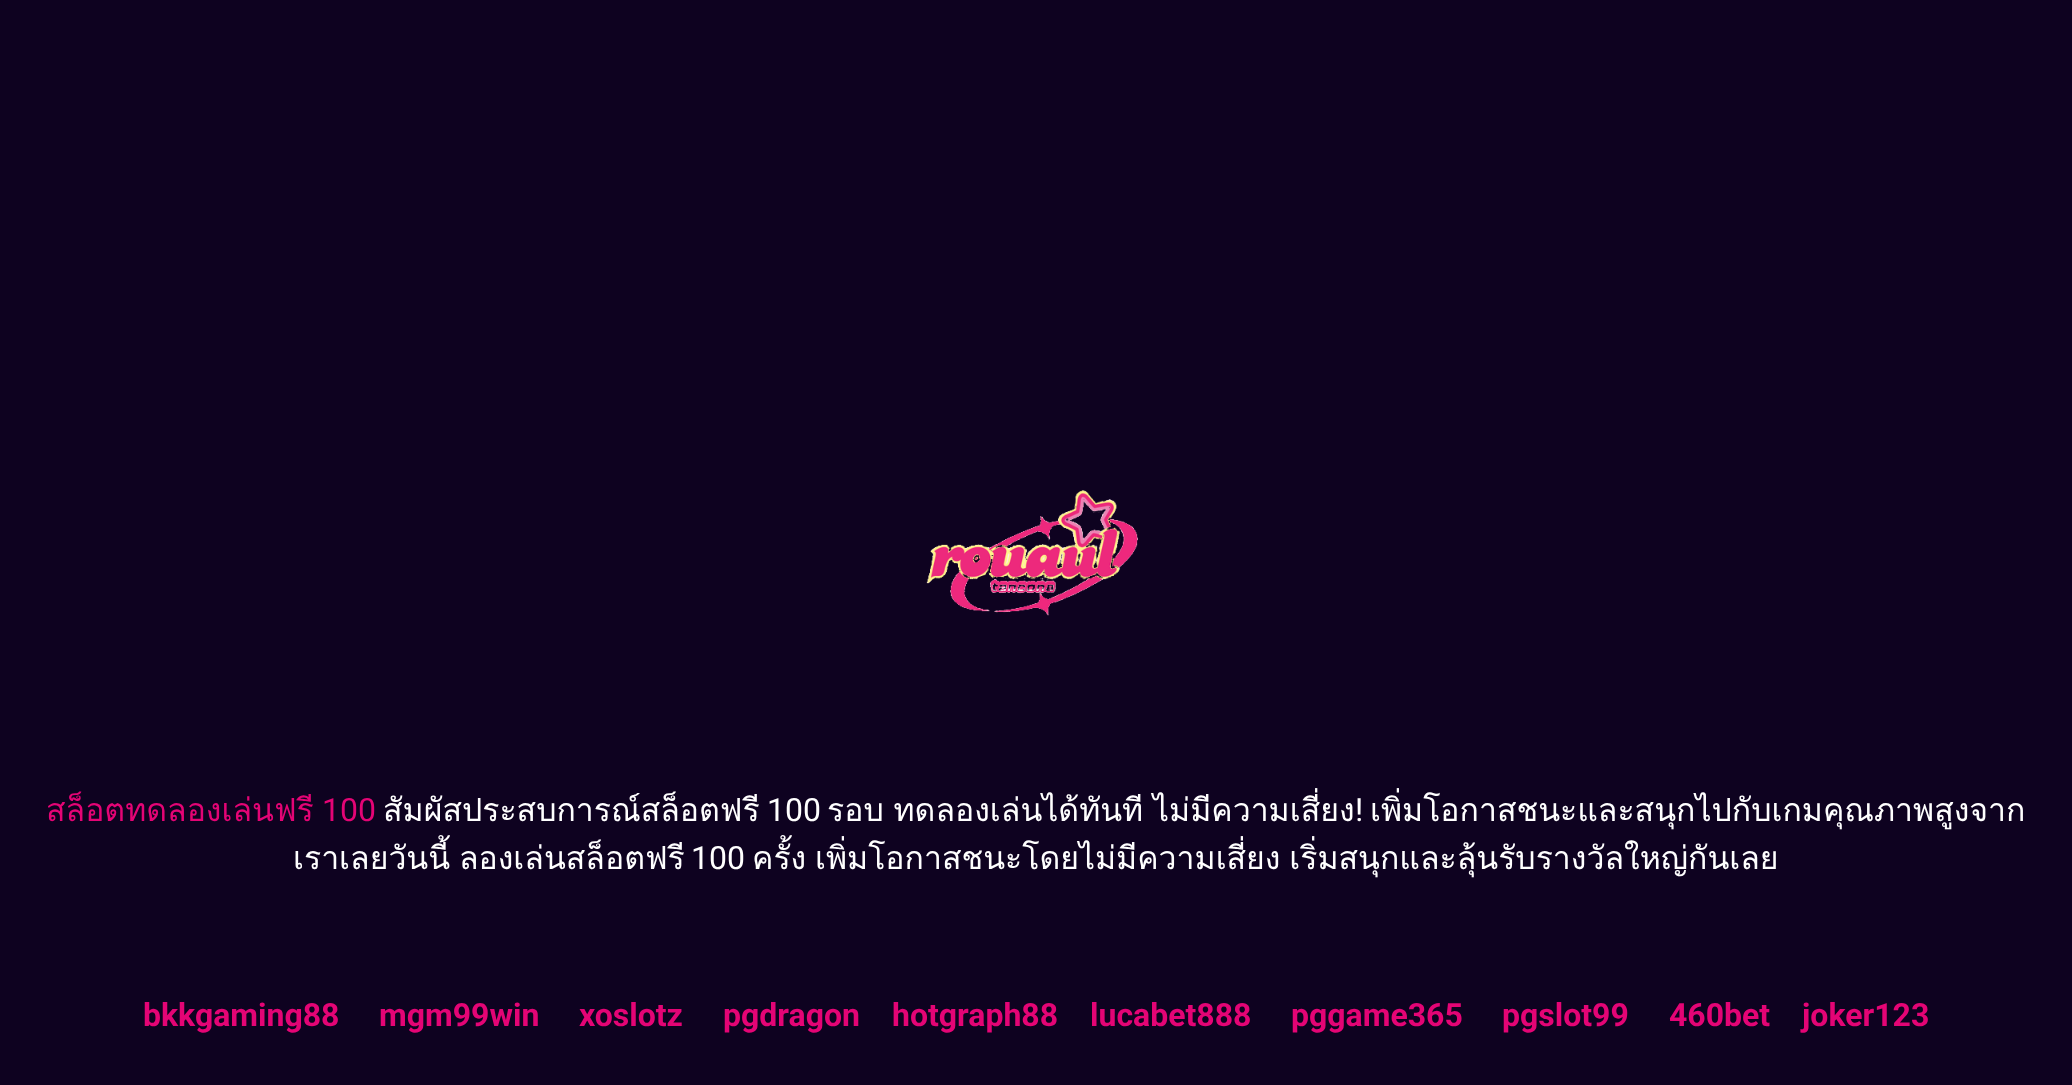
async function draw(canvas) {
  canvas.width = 2072;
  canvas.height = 1085;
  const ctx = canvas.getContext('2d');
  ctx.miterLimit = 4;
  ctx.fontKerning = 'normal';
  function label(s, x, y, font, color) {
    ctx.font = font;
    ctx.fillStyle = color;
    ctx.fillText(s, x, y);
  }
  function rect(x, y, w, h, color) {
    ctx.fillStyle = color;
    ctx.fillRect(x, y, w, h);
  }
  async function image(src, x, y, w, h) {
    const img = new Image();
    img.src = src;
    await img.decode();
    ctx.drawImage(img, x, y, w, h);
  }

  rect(0, 0, 2072, 1085, '#0e0220');
  await image('assets/img1.png', 926, 490, 212, 126);
  label('สล็อตทดลองเล่นฟรี', 46, 821, '32px Loma', '#e40475');
  label('100', 322, 821, '32px Roboto', '#e40475');
  label('สัมผัสประสบการณ์สล็อตฟรี', 383, 821, '32px Loma', '#fff');
  label('100', 767, 821, '32px Roboto', '#fff');
  ctx.wordSpacing = '-1px';
  label('รอบ ทดลองเล่นได้ทันที ไม่มีความเสี่ยง', 827, 821, '32px Loma', '#fff');
  ctx.wordSpacing = '0px';
  label('!', 1355, 821, '32px Roboto', '#fff');
  label('เพิ่มโอกาสชนะและสนุกไปกับเกมคุณภาพสูงจาก', 1370, 821, '32px Loma', '#fff');
  ctx.wordSpacing = '-2px';
  label('เราเลยวันนี้ ลองเล่นสล็อตฟรี', 293, 869, '32px Loma', '#fff');
  ctx.wordSpacing = '0px';
  label('100', 691, 869, '32px Roboto', '#fff');
  ctx.wordSpacing = '-2px';
  label('ครั้ง เพิ่มโอกาสชนะโดยไม่มีความเสี่ยง เริ่มสนุกและลุ้นรับรางวัลใหญ่กันเลย', 752, 869, '32px Loma', '#fff');
  ctx.wordSpacing = '0px';
  label('bkkgaming88', 143, 1026, 'bold 32px Roboto', '#e40475');
  label('mgm99win', 379, 1026, 'bold 32px Roboto', '#e40475');
  label('xoslotz', 579, 1026, 'bold 32px Roboto', '#e40475');
  label('pgdragon', 723, 1026, 'bold 32px Roboto', '#e40475');
  label('hotgraph88', 892, 1026, 'bold 32px Roboto', '#e40475');
  label('lucabet888', 1090, 1026, 'bold 32px Roboto', '#e40475');
  label('pggame365', 1291, 1026, 'bold 32px Roboto', '#e40475');
  label('pgslot99', 1502, 1026, 'bold 32px Roboto', '#e40475');
  label('460bet', 1669, 1026, 'bold 32px Roboto', '#e40475');
  label('joker123', 1802, 1026, 'bold 32px Roboto', '#e40475');
}

draw(document.querySelector('canvas'));
